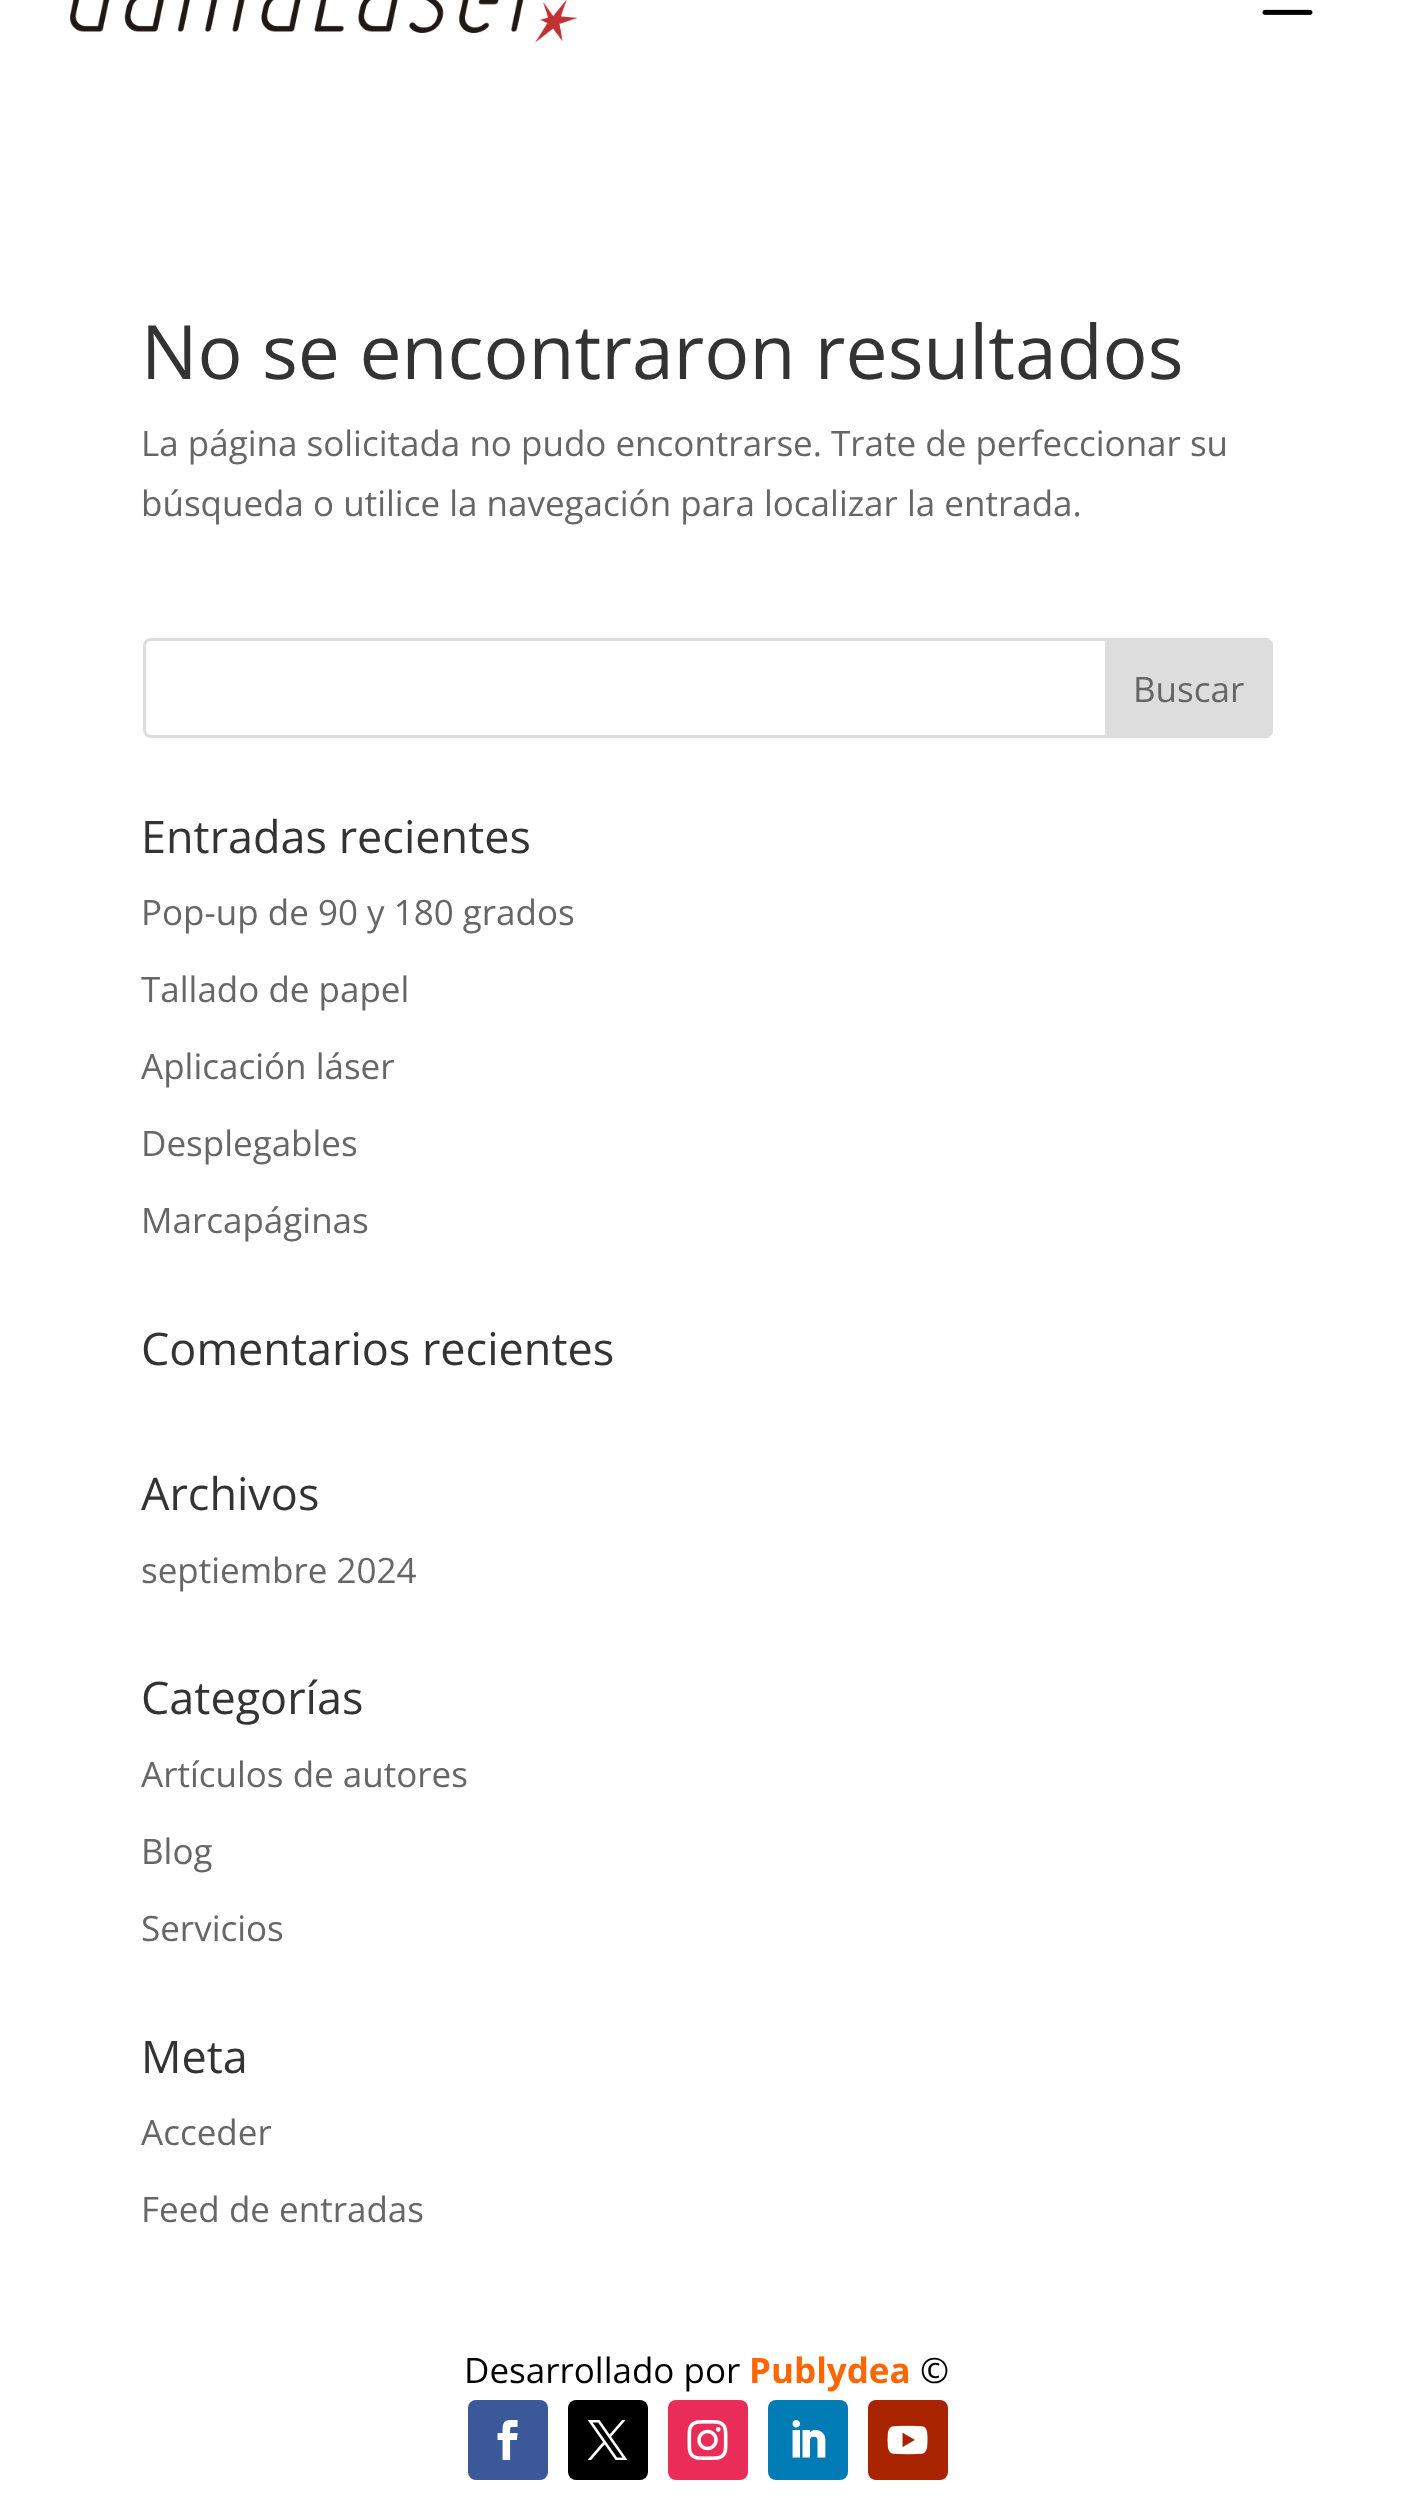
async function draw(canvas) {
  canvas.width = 1412;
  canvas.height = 2517;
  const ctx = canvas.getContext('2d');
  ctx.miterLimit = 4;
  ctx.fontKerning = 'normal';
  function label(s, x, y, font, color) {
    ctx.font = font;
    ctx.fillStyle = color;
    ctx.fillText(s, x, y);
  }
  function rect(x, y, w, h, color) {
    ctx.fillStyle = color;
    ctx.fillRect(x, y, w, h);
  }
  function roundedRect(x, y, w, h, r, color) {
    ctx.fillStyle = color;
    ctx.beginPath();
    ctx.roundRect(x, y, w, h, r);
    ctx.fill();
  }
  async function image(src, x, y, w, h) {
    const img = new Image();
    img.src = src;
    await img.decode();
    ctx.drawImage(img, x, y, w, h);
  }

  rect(0, 0, 1412, 2517, '#fff');
  await image('assets/img1.png', 70, 0, 508, 43);
  await image('assets/img2.png', 1262, 9, 51, 6);
  label('No se encontraron resultados', 141, 379, '75px Open Sans', '#333');
  label('La página solicitada no pudo encontrarse. Trate de perfeccionar su', 141, 456, '35px Open Sans', '#666');
  label('búsqueda o utilice la navegación para localizar la entrada.', 141, 516, '35px Open Sans', '#666');
  ctx.beginPath();
  ctx.roundRect(144.5, 639.5, 1127, 97, 6.5);
  ctx.strokeStyle = '#ddd';
  ctx.lineWidth = 3;
  ctx.stroke();
  ctx.fillStyle = '#ddd';
  ctx.beginPath();
  ctx.roundRect(1106.5, 639.5, 165, 97, [0, 6.5, 6.5, 0]);
  ctx.fill();
  ctx.stroke();
  label('Buscar', 1133, 702, '35px Open Sans', '#666');
  label('Entradas recientes', 141, 853, '45px Open Sans', '#333');
  label('Pop-up de 90 y 180 grados', 141, 925, '35px Open Sans', '#666');
  label('Tallado de papel', 141, 1002, '35px Open Sans', '#666');
  label('Aplicación láser', 141, 1079, '35px Open Sans', '#666');
  label('Desplegables', 141, 1156, '35px Open Sans', '#666');
  label('Marcapáginas', 141, 1233, '35px Open Sans', '#666');
  label('Comentarios recientes', 141, 1365, '45px Open Sans', '#333');
  label('Archivos', 141, 1510, '45px Open Sans', '#333');
  label('septiembre 2024', 141, 1583, '35px Open Sans', '#666');
  label('Categorías', 141, 1714, '45px Open Sans', '#333');
  label('Artículos de autores', 141, 1787, '35px Open Sans', '#666');
  label('Blog', 141, 1864, '35px Open Sans', '#666');
  label('Servicios', 141, 1941, '35px Open Sans', '#666');
  label('Meta', 141, 2073, '45px Open Sans', '#333');
  label('Acceder', 141, 2145, '35px Open Sans', '#666');
  label('Feed de entradas', 141, 2222, '35px Open Sans', '#666');
  label('Desarrollado por', 464, 2383, '35px Open Sans', '#000');
  label('Publydea', 749, 2383, 'bold 35px Open Sans', '#f60');
  label('©', 920, 2383, '35px Open Sans', '#000');
  roundedRect(468, 2400, 80, 80, 8, '#3b5998');
  await image('assets/img3.png', 497, 2420, 21, 40);
  roundedRect(568, 2400, 80, 80, 8, '#000');
  await image('assets/img4.png', 587, 2420, 41, 40);
  roundedRect(668, 2400, 80, 80, 8, '#ea2c59');
  await image('assets/img5.png', 687, 2420, 41, 40);
  roundedRect(768, 2400, 80, 80, 8, '#007bb6');
  await image('assets/img6.png', 792, 2420, 34, 38);
  roundedRect(868, 2400, 80, 80, 8, '#a82400');
  await image('assets/img7.png', 887, 2425, 41, 30);
}

draw(document.querySelector('canvas'));
